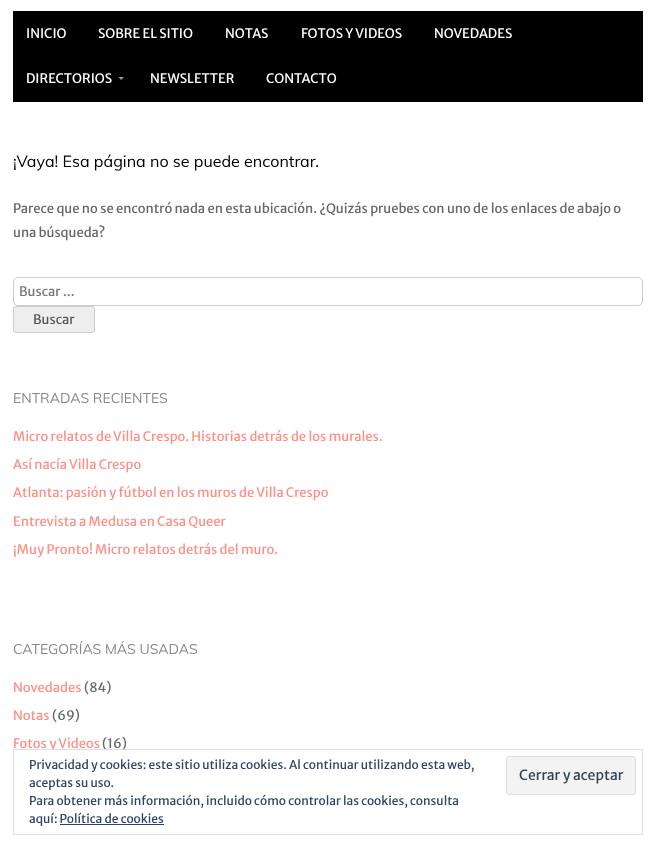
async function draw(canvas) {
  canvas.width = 656;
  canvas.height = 848;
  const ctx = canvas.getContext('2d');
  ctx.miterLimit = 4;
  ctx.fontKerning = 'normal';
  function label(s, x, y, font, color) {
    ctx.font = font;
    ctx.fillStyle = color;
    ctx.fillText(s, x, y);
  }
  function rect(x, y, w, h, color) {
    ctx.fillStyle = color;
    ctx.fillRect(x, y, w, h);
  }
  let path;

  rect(0, 0, 656, 848, '#fff');
  rect(13, 11, 630, 91, '#000');
  label('INICIO', 26, 38, '13px Merriweather Sans', '#fff');
  label('SOBRE EL SITIO', 98, 38, '13px Merriweather Sans', '#fff');
  label('NOTAS', 225, 38, '13px Merriweather Sans', '#fff');
  label('FOTOS Y VIDEOS', 301, 38, '13px Merriweather Sans', '#fff');
  label('NOVEDADES', 434, 38, '13px Merriweather Sans', '#fff');
  label('DIRECTORIOS', 26, 83, '13px Merriweather Sans', '#fff');
  ctx.fillStyle = '#999';
  path = new Path2D('M118.5 77H124L121 80Z');
  ctx.fill(path);
  label('NEWSLETTER', 150, 83, '13px Merriweather Sans', '#fff');
  label('CONTACTO', 266, 83, '13px Merriweather Sans', '#fff');
  label('¡Vaya! Esa página no se puede encontrar.', 13, 167, '16.1px Muli', '#000');
  label('Parece que no se encontró nada en esta ubicación. ¿Quizás pruebes con uno de los enlaces de abajo o', 13, 213, '13px Merriweather Sans', '#666');
  label('una búsqueda?', 13, 237, '13px Merriweather Sans', '#666');
  ctx.beginPath();
  ctx.roundRect(13.5, 277.5, 629, 28, 4.5);
  ctx.strokeStyle = '#ccc';
  ctx.stroke();
  label('Buscar ...', 19, 296, '13px Merriweather Sans', '#757575');
  ctx.fillStyle = '#eee';
  ctx.beginPath();
  ctx.roundRect(13.5, 306.5, 81, 26, 2.5);
  ctx.fill();
  ctx.stroke();
  label('Buscar', 33, 324, '13px Merriweather Sans', '#555');
  label('ENTRADAS RECIENTES', 13, 403, '14px Muli', '#888');
  label('Micro relatos de Villa Crespo. Historias detrás de los murales.', 13, 441, '13px Merriweather Sans', '#ff8f85');
  label('Así nacía Villa Crespo', 13, 469, '13px Merriweather Sans', '#ff8f85');
  label('Atlanta: pasión y fútbol en los muros de Villa Crespo', 13, 497, '13px Merriweather Sans', '#ff8f85');
  label('Entrevista a Medusa en Casa Queer', 13, 526, '13px Merriweather Sans', '#ff8f85');
  label('¡Muy Pronto! Micro relatos detrás del muro.', 13, 554, '13px Merriweather Sans', '#ff8f85');
  label('CATEGORÍAS MÁS USADAS', 13, 654, '14px Muli', '#888');
  label('Novedades', 13, 692, '13px Merriweather Sans', '#ff8f85');
  label('(84)', 84, 692, '13px Merriweather Sans', '#666');
  label('Notas', 13, 720, '13px Merriweather Sans', '#ff8f85');
  label('(69)', 52, 720, '13px Merriweather Sans', '#666');
  label('Fotos y Videos', 13, 748, '13px Merriweather Sans', '#ff8f85');
  label('(16)', 102, 748, '13px Merriweather Sans', '#666');
  rect(49, 750, 57, 2, '#fff');
  ctx.strokeStyle = '#dedede';
  ctx.strokeRect(13.5, 749.5, 629, 85);
  label('Privacidad y cookies: este sitio utiliza cookies. Al continuar utilizando esta web,', 29, 769, '12px Merriweather Sans', '#2e4467');
  label('aceptas su uso.', 29, 787, '12px Merriweather Sans', '#2e4467');
  ctx.fillStyle = '#f3f3f3';
  ctx.beginPath();
  ctx.roundRect(506.5, 756.5, 129, 38, 2.5);
  ctx.fill();
  ctx.stroke();
  label('Cerrar y aceptar', 519, 780, '14px Merriweather Sans', '#2e4453');
  label('Para obtener más información, incluido cómo controlar las cookies, consulta', 29, 805, '12px Merriweather Sans', '#2e4467');
  label('aquí: Política de cookies', 29, 823, '12px Merriweather Sans', '#2e4467');
  rect(60, 824, 104, 1, '#2e4467');
}

draw(document.querySelector('canvas'));
